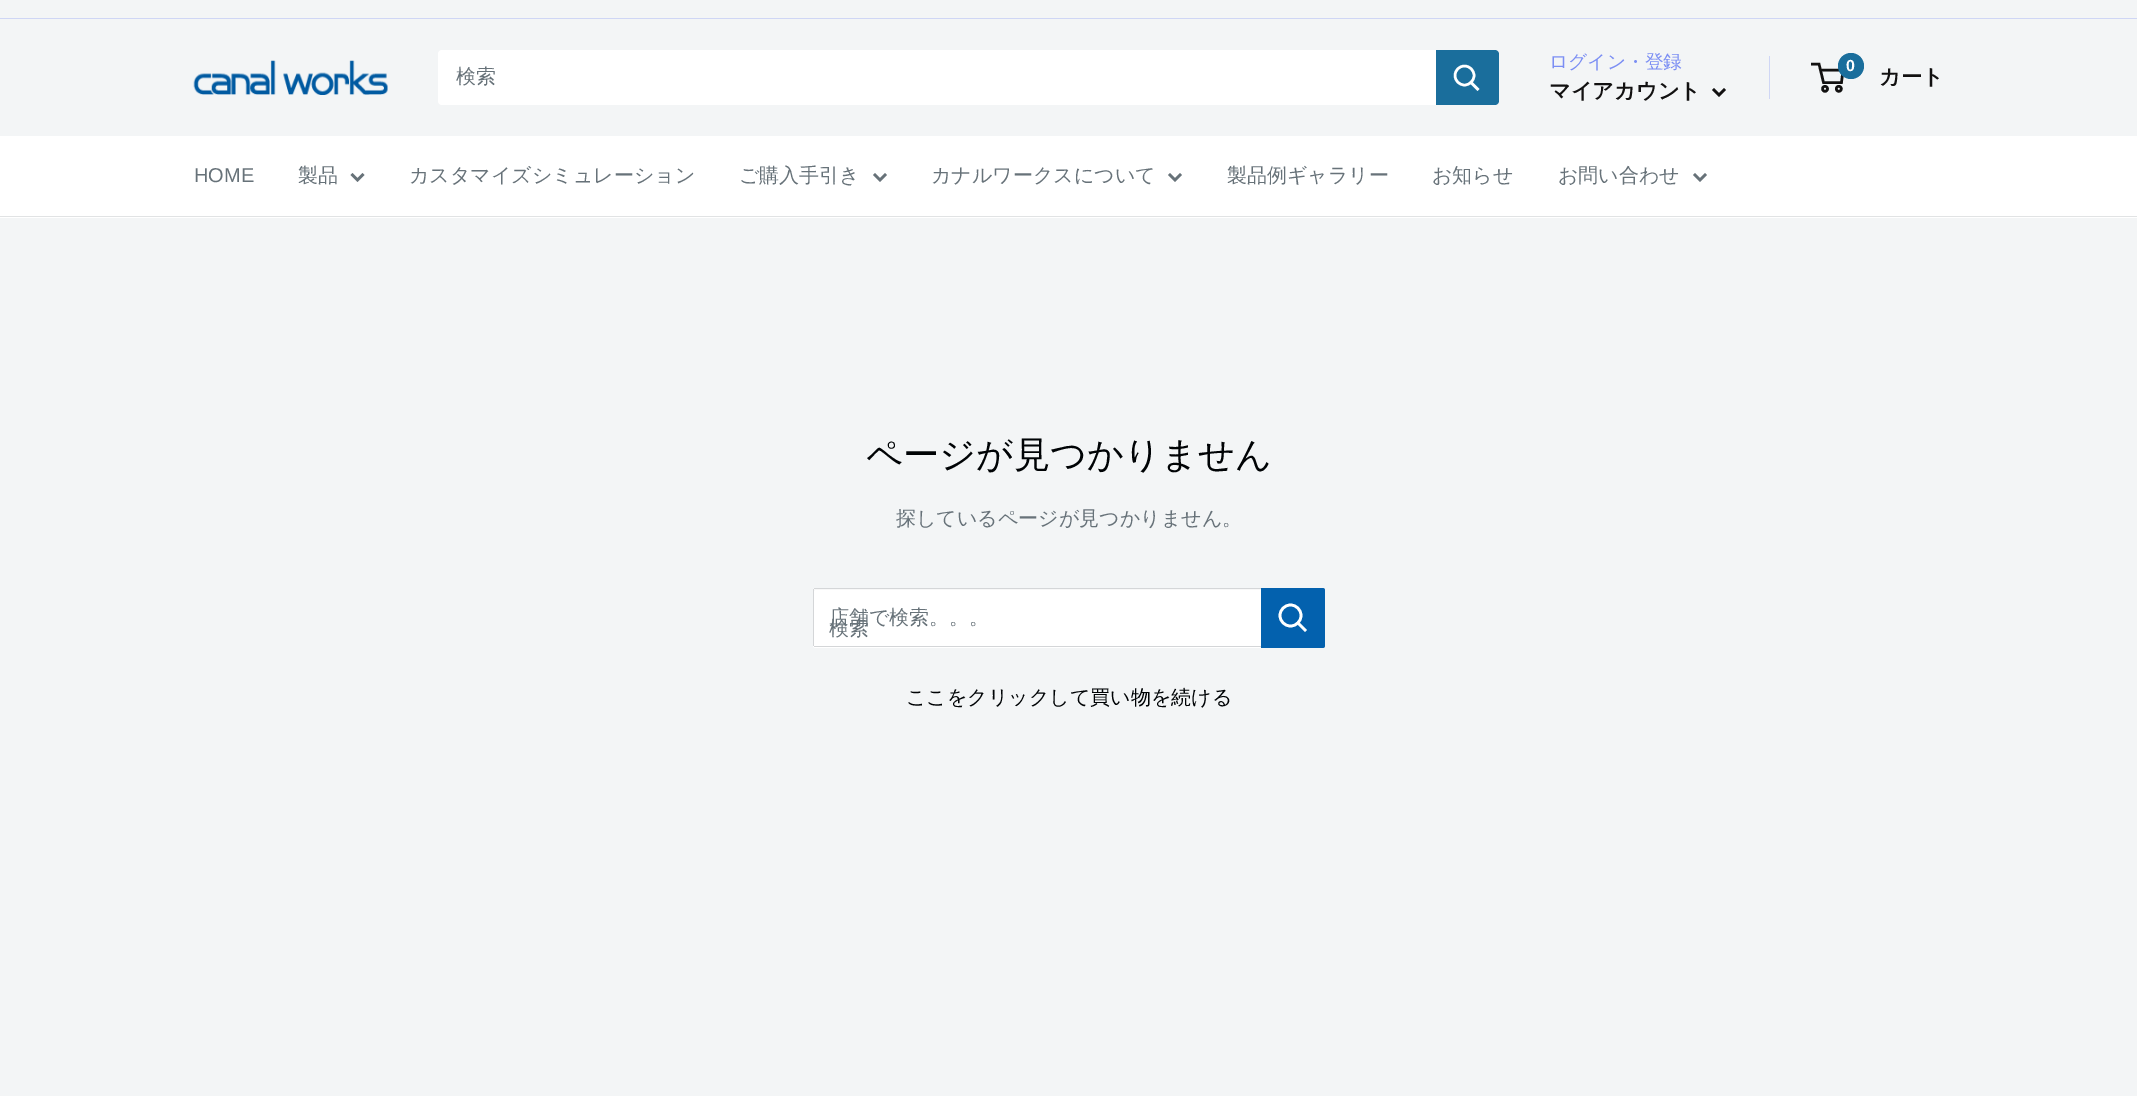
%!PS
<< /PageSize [2137 1096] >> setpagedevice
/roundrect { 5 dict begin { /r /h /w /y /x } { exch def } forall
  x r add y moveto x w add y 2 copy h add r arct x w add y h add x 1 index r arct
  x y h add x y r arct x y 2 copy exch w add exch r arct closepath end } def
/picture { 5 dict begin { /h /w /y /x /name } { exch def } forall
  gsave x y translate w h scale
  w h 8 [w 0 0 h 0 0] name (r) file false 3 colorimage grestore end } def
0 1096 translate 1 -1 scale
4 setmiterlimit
0.953 0.961 0.965 setrgbcolor
0 0 2137 1096 rectfill
0.812 0.839 0.961 setrgbcolor
0 18 2137 1 rectfill
(img1.rgb) 193 60 195 35 picture
1 setgray
438 50 1061 55 4 roundrect fill
/WenQuanYiZenHei-Medium [20 0 0 -20 0 0] selectfont
0.404 0.447 0.475 setrgbcolor
456 83 moveto (検索) show
0.102 0.431 0.612 setrgbcolor
newpath 1436 50 moveto 1495 50 lineto 1497 50 1499 52 1499 54 curveto 1499 101 lineto 1499 103 1497 105 1495 105 curveto 1436 105 lineto closepath fill
1 setgray
2.5 setlinewidth
2 setlinecap
newpath 1477.5 89 moveto 1471 82.5 lineto stroke
0 setlinecap
newpath 1464.5 75.5 9.5 0 360 arc closepath stroke
/WenQuanYiZenHei-Medium [18.75 0 0 -18.75 0 0] selectfont
0.482 0.557 0.957 setrgbcolor
1549 68 moveto (ログイン・登録) show
0.812 0.839 0.961 setrgbcolor
1769 56 1 43 rectfill
/WenQuanYiZenHei-Bold [21.25 0 0 -21.25 0 0] selectfont
0.071 0.067 0.067 setrgbcolor
1549 98 moveto (マイアカウント) show
2 setlinecap
newpath 1724 90 moveto 1719 95 lineto 1714 90 lineto stroke
0 setlinecap
newpath 1825 88.8 2.5 0 360 arc closepath stroke
newpath 1838.8 88.8 2.5 0 360 arc closepath stroke
newpath 1820.5 70 moveto 1843 70 lineto 1841.5 82.5 lineto 1823.5 82.5 lineto 1819 64 lineto 1811 64 lineto stroke
0.102 0.431 0.612 setrgbcolor
newpath 1851 66 13 0 360 arc closepath fill
/LiberationSans-Bold [16 0 0 -16 0 0] selectfont
1 setgray
1846 71 moveto (0) show
/WenQuanYiZenHei-Bold [21.25 0 0 -21.25 0 0] selectfont
0.071 0.067 0.067 setrgbcolor
1879 84 moveto (カート) show
1 setgray
0 136 2137 82 rectfill
0.882 0.89 0.894 setrgbcolor
0 216 2137 1 rectfill
/LiberationSans-Regular [20 0 0 -20 0 0] selectfont
0.404 0.447 0.475 setrgbcolor
194 182 moveto (HOME) show
/WenQuanYiZenHei-Medium [20 0 0 -20 0 0] selectfont
298 182 moveto (製品) show
2 setlinecap
newpath 362.5 175 moveto 357.5 180 lineto 352.5 175 lineto stroke
409 182 moveto (カスタマイズシミュレーション) show
739 182 moveto (ご購入手引き) show
newpath 885 175 moveto 880 180 lineto 875 175 lineto stroke
931 182 moveto (カナルワークスについて) show
newpath 1180 175 moveto 1175 180 lineto 1170 175 lineto stroke
1227 182 moveto (製品例ギャラリー) show
1432 182 moveto (お知らせ) show
1558 182 moveto (お問い合わせ) show
newpath 1705 175 moveto 1700 180 lineto 1695 175 lineto stroke
/WenQuanYiZenHei-Medium [36.25 0 0 -36.25 0 0] selectfont
0 0.012 0.02 setrgbcolor
866 467 moveto (ページが見つかりません) show
/WenQuanYiZenHei-Medium [20 0 0 -20 0 0] selectfont
0.404 0.447 0.475 setrgbcolor
896 525 moveto (探しているページが見つかりません。) show
1 setgray
newpath 815.5 588 moveto 1261 588 lineto 1261 648 lineto 815.5 648 lineto 814 648 813 647 813 645.5 curveto 813 590.5 lineto 813 589 814 588 815.5 588 curveto closepath fill
0.404 0.447 0.475 setrgbcolor
829 635 moveto (検索) show
829 624 moveto (店舗で検索。。。) show
0.973 setgray
newpath 815 590 moveto 1261 590 lineto 1261 589 lineto 815 589 lineto 814 590 lineto 814 591 lineto closepath fill
0.831 0.839 0.847 setrgbcolor
814 588 447 1 rectfill
814 646 447 1 rectfill
813 589 1 57 rectfill
0.012 0.38 0.682 setrgbcolor
newpath 1261 588 moveto 1322.5 588 lineto 1324 588 1325 589 1325 590.5 curveto 1325 645.5 lineto 1325 647 1324 648 1322.5 648 curveto 1261 648 lineto closepath fill
1 setgray
2.7 setlinewidth
newpath 1305 630 moveto 1298 623 lineto stroke
0 setlinecap
newpath 1290.5 615.5 10.5 0 360 arc closepath stroke
0 0.012 0.02 setrgbcolor
906 704 moveto (ここをクリックして買い物を続ける) show
showpage
